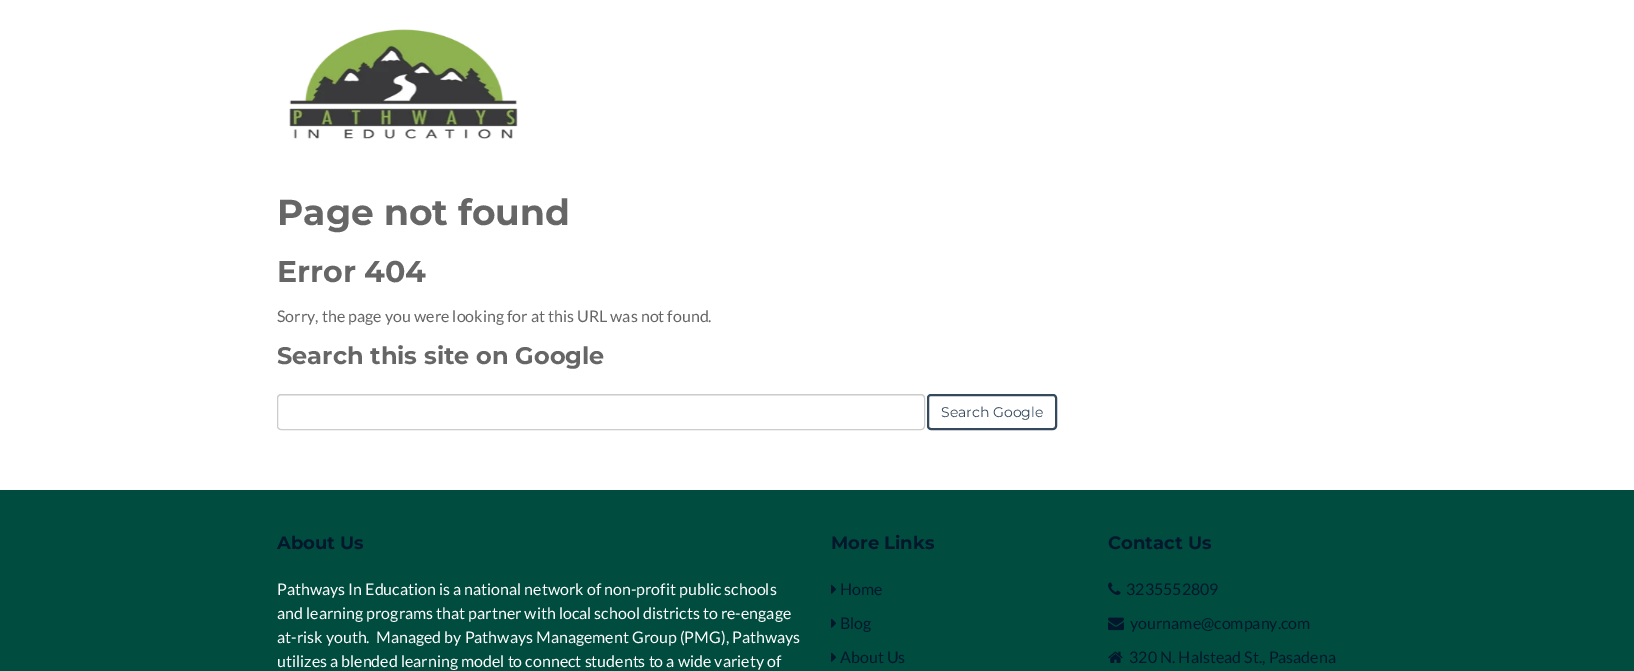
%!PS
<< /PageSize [1634 671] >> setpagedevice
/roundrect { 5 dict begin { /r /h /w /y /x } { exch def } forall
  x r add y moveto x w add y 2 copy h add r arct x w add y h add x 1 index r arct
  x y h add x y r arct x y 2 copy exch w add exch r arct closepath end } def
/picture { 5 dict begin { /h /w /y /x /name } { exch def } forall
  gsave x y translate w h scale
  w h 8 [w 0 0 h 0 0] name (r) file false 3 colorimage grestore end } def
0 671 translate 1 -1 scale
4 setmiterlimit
1 setgray
0 0 1634 671 rectfill
(img1.rgb) 289 29 229 110 picture
/Montserrat-Bold [36 0 0 -36 0 0] selectfont
0.4 setgray
277 225 moveto (Page not found) show
/Montserrat-Bold [30 0 0 -30 0 0] selectfont
277 282 moveto (Error 404) show
/Lato-Regular [16 0 0 -16 0 0] selectfont
277 322 moveto (Sorry, the page you were looking for at this URL was not found.) show
/Montserrat-Bold [24 0 0 -24 0 0] selectfont
277 364 moveto (Search this site on Google) show
0.925 setgray
newpath 281 396 moveto 921 396 lineto 923 396 924 397 924 399 curveto 924 398 lineto 924 396 923 395 921 395 curveto 281 395 lineto 279 395 278 396 278 398 curveto 278 399 lineto 278 397 279 396 281 396 curveto closepath fill
0.8 setgray
277.5 394.5 647 35 3.5 roundrect stroke
0.204 0.286 0.369 setrgbcolor
2 setlinewidth
928 395 128 34 3 roundrect stroke
/Montserrat-Regular [14 0 0 -14 0 0] selectfont
941 417 moveto (Search Google) show
0 0.302 0.251 setrgbcolor
0 490 1634 181 rectfill
/Montserrat-Bold [18 0 0 -18 0 0] selectfont
0.008 0.09 0.173 setrgbcolor
277 549 moveto (About Us) show
/Lato-Regular [16 0 0 -16 0 0] selectfont
1 setgray
277 595 moveto (Pathways In Education is a national network of non-profit public schools) show
277 619 moveto (and learning programs that partner with local school districts to re-engage) show
277 643 moveto (at-risk youth.  Managed by Pathways Management Group \(PMG\), Pathways) show
277 667 moveto (utilizes a blended learning model to connect students to a wide variety of) show
/Montserrat-Bold [18 0 0 -18 0 0] selectfont
0.008 0.09 0.173 setrgbcolor
831 549 moveto (More Links) show
(img2.rgb) 831 584 5 10 picture
/Lato-Regular [16 0 0 -16 0 0] selectfont
840 595 moveto (Home) show
(img2.rgb) 831 618 5 10 picture
840 629 moveto (Blog) show
(img2.rgb) 831 652 5 10 picture
840 663 moveto (About Us) show
/Montserrat-Bold [18 0 0 -18 0 0] selectfont
1108 549 moveto (Contact Us) show
(img3.rgb) 1108 582 13 13 picture
/Lato-Regular [16 0 0 -16 0 0] selectfont
1126 595 moveto (3235552809) show
(img4.rgb) 1108 617 16 14 picture
1130 629 moveto (yourname@company.com) show
(img5.rgb) 1108 651 15 12 picture
1129 663 moveto (320 N. Halstead St., Pasadena) show
showpage
